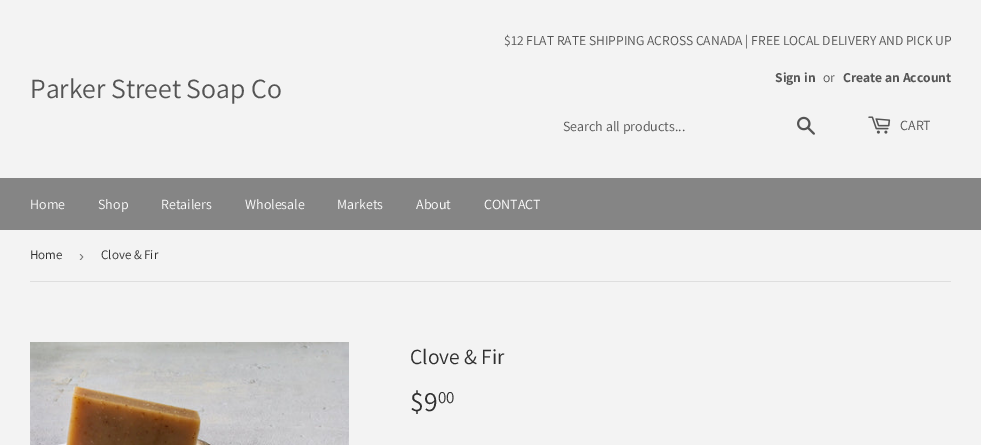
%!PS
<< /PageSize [981 445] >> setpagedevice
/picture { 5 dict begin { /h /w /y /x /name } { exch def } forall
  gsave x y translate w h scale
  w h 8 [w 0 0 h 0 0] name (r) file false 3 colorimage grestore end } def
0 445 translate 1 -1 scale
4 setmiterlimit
0.953 setgray
0 0 981 445 rectfill
/Assistant-Regular [27.75 0 0 -27.75 0 0] selectfont
0.329 setgray
30 98 moveto (Parker Street Soap Co) show
/Assistant-Regular [13.6 0 0 -13.6 0 0] selectfont
504 45 moveto ($12 FLAT RATE SHIPPING ACROSS CANADA | FREE LOCAL DELIVERY AND PICK UP) show
/Assistant-Bold [13.6 0 0 -13.6 0 0] selectfont
775 82 moveto (Sign in) show
/Assistant-Regular [13.6 0 0 -13.6 0 0] selectfont
823 82 moveto (or) show
/Assistant-Bold [13.6 0 0 -13.6 0 0] selectfont
843 82 moveto (Create an Account) show
/Assistant-Regular [14 0 0 -14 0 0] selectfont
563 131 moveto (Search all products...) show
(img1.rgb) 797 116 18 19 picture
(img2.rgb) 868 116 23 18 picture
900 130 moveto (CART) show
0.522 setgray
0 178 981 52 rectfill
1 setgray
30 209 moveto (Home) show
98 209 moveto (Shop) show
161 209 moveto (Retailers) show
245 209 moveto (Wholesale) show
337 209 moveto (Markets) show
416 209 moveto (About) show
484 209 moveto (CONTACT) show
0.871 setgray
30 281 921 1 rectfill
/Assistant-Regular [13 0 0 -13 0 0] selectfont
0.184 setgray
30 259 moveto (Home) show
/LiberationSans-Regular [15 0 0 -15 0 0] selectfont
0.463 setgray
79 261 moveto (›) show
/Assistant-Regular [13 0 0 -13 0 0] selectfont
0.184 setgray
101 259 moveto (Clove & Fir) show
(img3.rgb) 30 342 319 103 picture
/Assistant-Regular [21.5 0 0 -21.5 0 0] selectfont
410 364 moveto (Clove & Fir) show
/Assistant-Regular [27.75 0 0 -27.75 0 0] selectfont
410 411 moveto ($9) show
/Assistant-Regular [17 0 0 -17 0 0] selectfont
438 403 moveto (00) show
showpage
